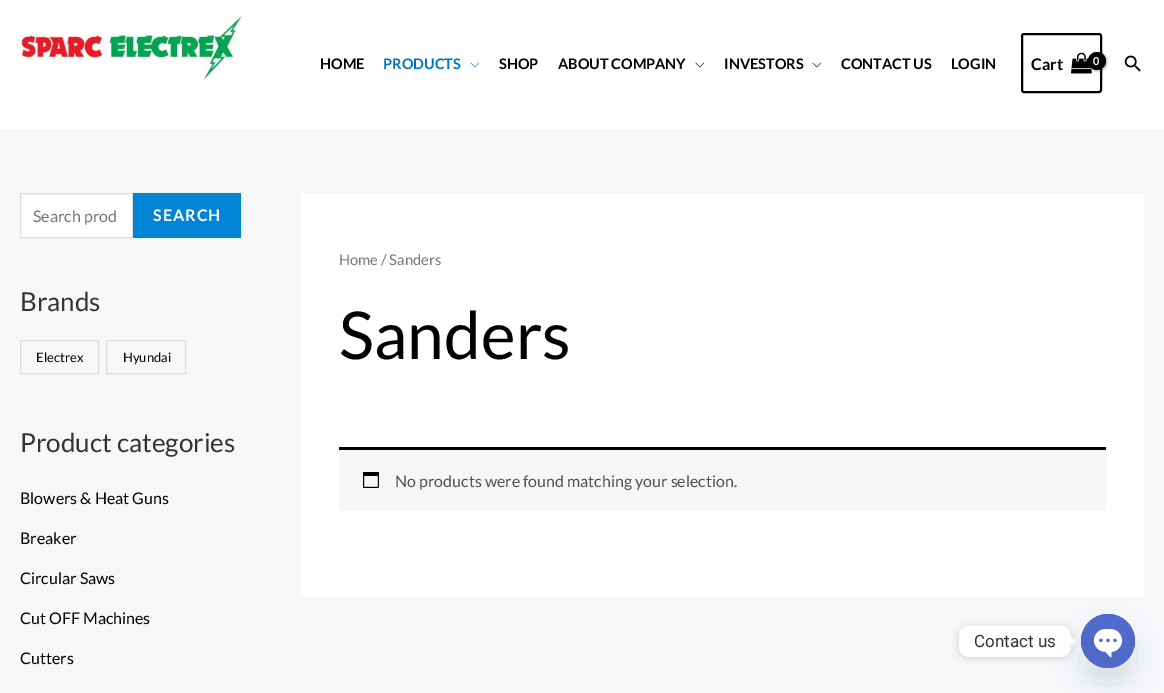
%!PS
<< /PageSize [1164 693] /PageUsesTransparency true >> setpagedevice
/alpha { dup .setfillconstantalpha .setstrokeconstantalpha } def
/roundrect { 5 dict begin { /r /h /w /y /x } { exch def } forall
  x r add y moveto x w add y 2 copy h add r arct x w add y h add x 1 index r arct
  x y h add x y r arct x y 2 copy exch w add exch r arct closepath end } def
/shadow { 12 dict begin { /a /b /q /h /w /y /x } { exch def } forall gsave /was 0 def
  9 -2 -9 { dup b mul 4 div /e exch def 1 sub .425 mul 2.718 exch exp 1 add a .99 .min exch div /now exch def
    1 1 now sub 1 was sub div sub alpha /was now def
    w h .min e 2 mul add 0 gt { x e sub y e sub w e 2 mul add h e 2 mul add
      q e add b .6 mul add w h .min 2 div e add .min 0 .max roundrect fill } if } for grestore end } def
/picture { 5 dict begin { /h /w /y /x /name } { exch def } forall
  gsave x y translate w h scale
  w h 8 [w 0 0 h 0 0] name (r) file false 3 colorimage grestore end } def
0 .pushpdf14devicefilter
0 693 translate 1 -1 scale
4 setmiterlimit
0.961 0.969 0.976 setrgbcolor
0 0 1164 693 rectfill
1 setgray
0 0 1164 129 rectfill
(img1.rgb) 20 16 224 64 picture
/Lato-Bold [14.5 0 0 -14.5 0 0] selectfont
0 setgray
320 69 moveto (HOME) show
0 0.459 0.745 setrgbcolor
383 69 moveto (PRODUCTS) show
(img2.rgb) 470 62 9 6 picture
0 setgray
499 69 moveto (SHOP) show
558 69 moveto (ABOUT COMPANY) show
(img3.rgb) 695 62 9 6 picture
724 69 moveto (INVESTORS) show
(img3.rgb) 812 62 9 6 picture
841 69 moveto (CONTACT US) show
951 69 moveto (LOGIN) show
2 setlinewidth
1022 34 79 58 2 roundrect stroke
/Lato-Bold [16 0 0 -16 0 0] selectfont
1031 70 moveto (Cart) show
(img4.rgb) 1071 52 21 22 picture
1089 53 18 18 9 1.5 0.3 shadow
newpath 1097 61 9 0 360 arc closepath fill
/Lato-Bold [11 0 0 -11 0 0] selectfont
1 setgray
1093 65 moveto (0) show
(img5.rgb) 1124 55 17 17 picture
newpath 20.5 193.5 moveto 132.5 193.5 lineto 132.5 237.5 lineto 20.5 237.5 lineto closepath gsave fill grestore
0.867 setgray
1 setlinewidth
stroke
/Lato-Regular [16 0 0 -16 0 0] selectfont
0.459 setgray
33 222 moveto (Search prod) show
0 0.518 0.839 setrgbcolor
133 193 108 45 rectfill
/Lato-Bold [16 0 0 -16 0 0] selectfont
1 setgray
153 221 moveto 1 0 (SEARCH) ashow
/Lato-Regular [26 0 0 -26 0 0] selectfont
0.2 setgray
20 311 moveto (Brands) show
0.867 setgray
20.5 340.5 78 33 rectstroke
/Lato-Regular [13 0 0 -13 0 0] selectfont
0 setgray
36 362 moveto (Electrex) show
0.867 setgray
106.5 340.5 79 33 rectstroke
0 setgray
123 362 moveto (Hyundai) show
/Lato-Regular [26 0 0 -26 0 0] selectfont
0.2 setgray
20 452 moveto (Product categories) show
/Lato-Regular [16 0 0 -16 0 0] selectfont
0 setgray
20 504 moveto (Blowers & Heat Guns) show
20 544 moveto (Breaker) show
20 584 moveto (Circular Saws) show
20 624 moveto (Cut OFF Machines) show
20 664 moveto (Cutters) show
1 setgray
301 193 843 404 rectfill
/Lato-Regular [14.75 0 0 -14.75 0 0] selectfont
0.459 setgray
339 265 moveto (Home / Sanders) show
/Lato-Regular [66 0 0 -66 0 0] selectfont
0 setgray
339 359 moveto (Sanders) show
0.969 0.965 0.969 setrgbcolor
339 450 767 61 rectfill
0 setgray
339 447 767 3 rectfill
(img6.rgb) 363 472 16 16 picture
/Lato-Regular [16 0 0 -16 0 0] selectfont
0.318 setgray
395 487 moveto (No products were found matching your selection.) show
0 setgray
959 627 112 31 10 4 0.15 shadow
1 setgray
959 626 112 31 10 roundrect fill
/Roboto-Regular [17 0 0 -17 0 0] selectfont
0.2 setgray
974 647 moveto (Contact us) show
1 setgray
newpath 1071 646.5 moveto 1071 636.5 lineto 1076 641.5 lineto closepath fill
0.286 0.408 0.494 setrgbcolor
1081 630 54 54 27 12 0.16 shadow
(img7.rgb) 1081 614 54 54 picture
.poppdf14devicefilter showpage
